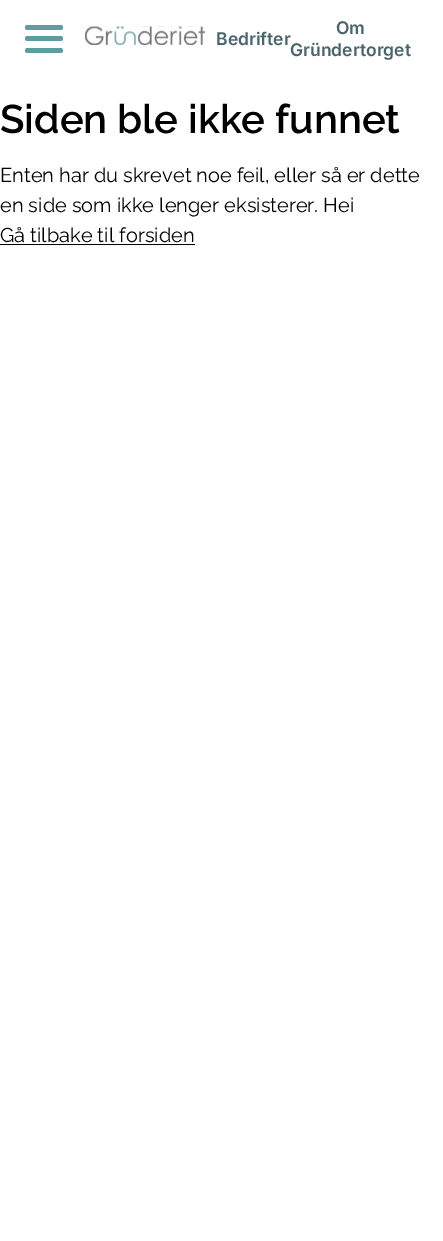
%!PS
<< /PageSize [443 1241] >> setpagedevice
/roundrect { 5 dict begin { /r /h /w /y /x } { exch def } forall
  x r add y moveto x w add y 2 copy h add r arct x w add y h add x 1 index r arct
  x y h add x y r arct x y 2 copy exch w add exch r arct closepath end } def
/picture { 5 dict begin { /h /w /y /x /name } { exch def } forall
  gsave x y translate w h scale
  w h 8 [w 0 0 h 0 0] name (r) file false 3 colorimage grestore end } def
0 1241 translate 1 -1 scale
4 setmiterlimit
1 setgray
0 0 443 1241 rectfill
0.373 0.612 0.627 setrgbcolor
25 25 38 5 2.5 roundrect fill
25 36 38 5 2.5 roundrect fill
25 48 38 5 2.5 roundrect fill
(img1.rgb) 85 26 120 19 picture
/Inter-SemiBold [17.5 0 0 -17.5 0 0] selectfont
0.278 0.396 0.416 setrgbcolor
216 45 moveto (Bedrifter) show
336 34 moveto (Om) show
290 56 moveto (Gründertorget) show
/Raleway-SemiBold [40 0 0 -40 0 0] selectfont
0 setgray
0 133 moveto (Siden ble ikke funnet) show
/Raleway-Regular [20 0 0 -20 0 0] selectfont
0 182 moveto (Enten har du skrevet noe feil, eller så er dette) show
0 212 moveto (en side som ikke lenger eksisterer. Hei) show
0 242 moveto (Gå tilbake til forsiden) show
0 244 195 1 rectfill
showpage
